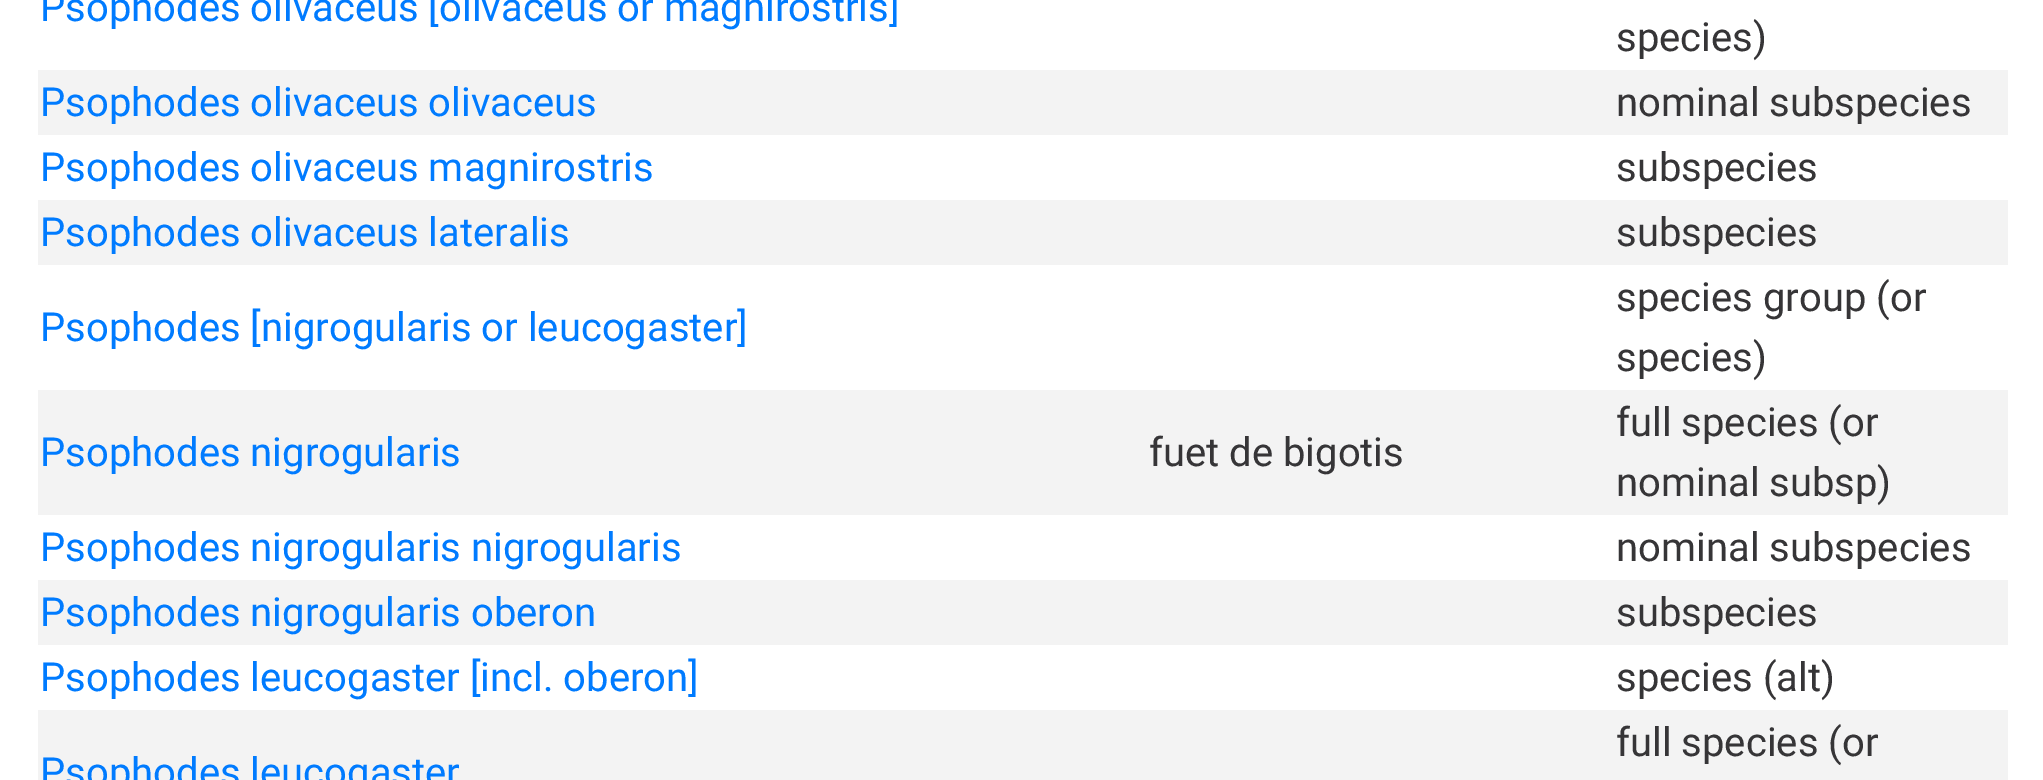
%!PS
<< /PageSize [2043 780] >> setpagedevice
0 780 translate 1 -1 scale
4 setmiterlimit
1 setgray
0 0 2043 780 rectfill
/Roboto-Regular [40 0 0 -40 0 0] selectfont
0 0.482 1 setrgbcolor
40 21 moveto (Psophodes olivaceus [olivaceus or magnirostris]) show
0.212 0.208 0.216 setrgbcolor
1616 51 moveto (species\)) show
0.953 setgray
38 70 1970 65 rectfill
0 0.482 1 setrgbcolor
40 116 moveto (Psophodes olivaceus olivaceus) show
0.212 0.208 0.216 setrgbcolor
1616 116 moveto (nominal subspecies) show
0 0.482 1 setrgbcolor
40 181 moveto (Psophodes olivaceus magnirostris) show
0.212 0.208 0.216 setrgbcolor
1616 181 moveto (subspecies) show
0.953 setgray
38 200 1970 65 rectfill
0 0.482 1 setrgbcolor
40 246 moveto (Psophodes olivaceus lateralis) show
0.212 0.208 0.216 setrgbcolor
1616 246 moveto (subspecies) show
0 0.482 1 setrgbcolor
40 341 moveto (Psophodes [nigrogularis or leucogaster]) show
0.212 0.208 0.216 setrgbcolor
1616 311 moveto (species group \(or) show
1616 371 moveto (species\)) show
0.953 setgray
38 390 1970 125 rectfill
0 0.482 1 setrgbcolor
40 466 moveto (Psophodes nigrogularis) show
0.212 0.208 0.216 setrgbcolor
1149 466 moveto (fuet de bigotis) show
1616 436 moveto (full species \(or) show
1616 496 moveto (nominal subsp\)) show
0 0.482 1 setrgbcolor
40 561 moveto (Psophodes nigrogularis nigrogularis) show
0.212 0.208 0.216 setrgbcolor
1616 561 moveto (nominal subspecies) show
0.953 setgray
38 580 1970 65 rectfill
0 0.482 1 setrgbcolor
40 626 moveto (Psophodes nigrogularis oberon) show
0.212 0.208 0.216 setrgbcolor
1616 626 moveto (subspecies) show
0 0.482 1 setrgbcolor
40 691 moveto (Psophodes leucogaster [incl. oberon]) show
0.212 0.208 0.216 setrgbcolor
1616 691 moveto (species \(alt\)) show
0.953 setgray
38 710 1970 70 rectfill
0 0.482 1 setrgbcolor
40 786 moveto (Psophodes leucogaster) show
0.212 0.208 0.216 setrgbcolor
1616 756 moveto (full species \(or) show
showpage
